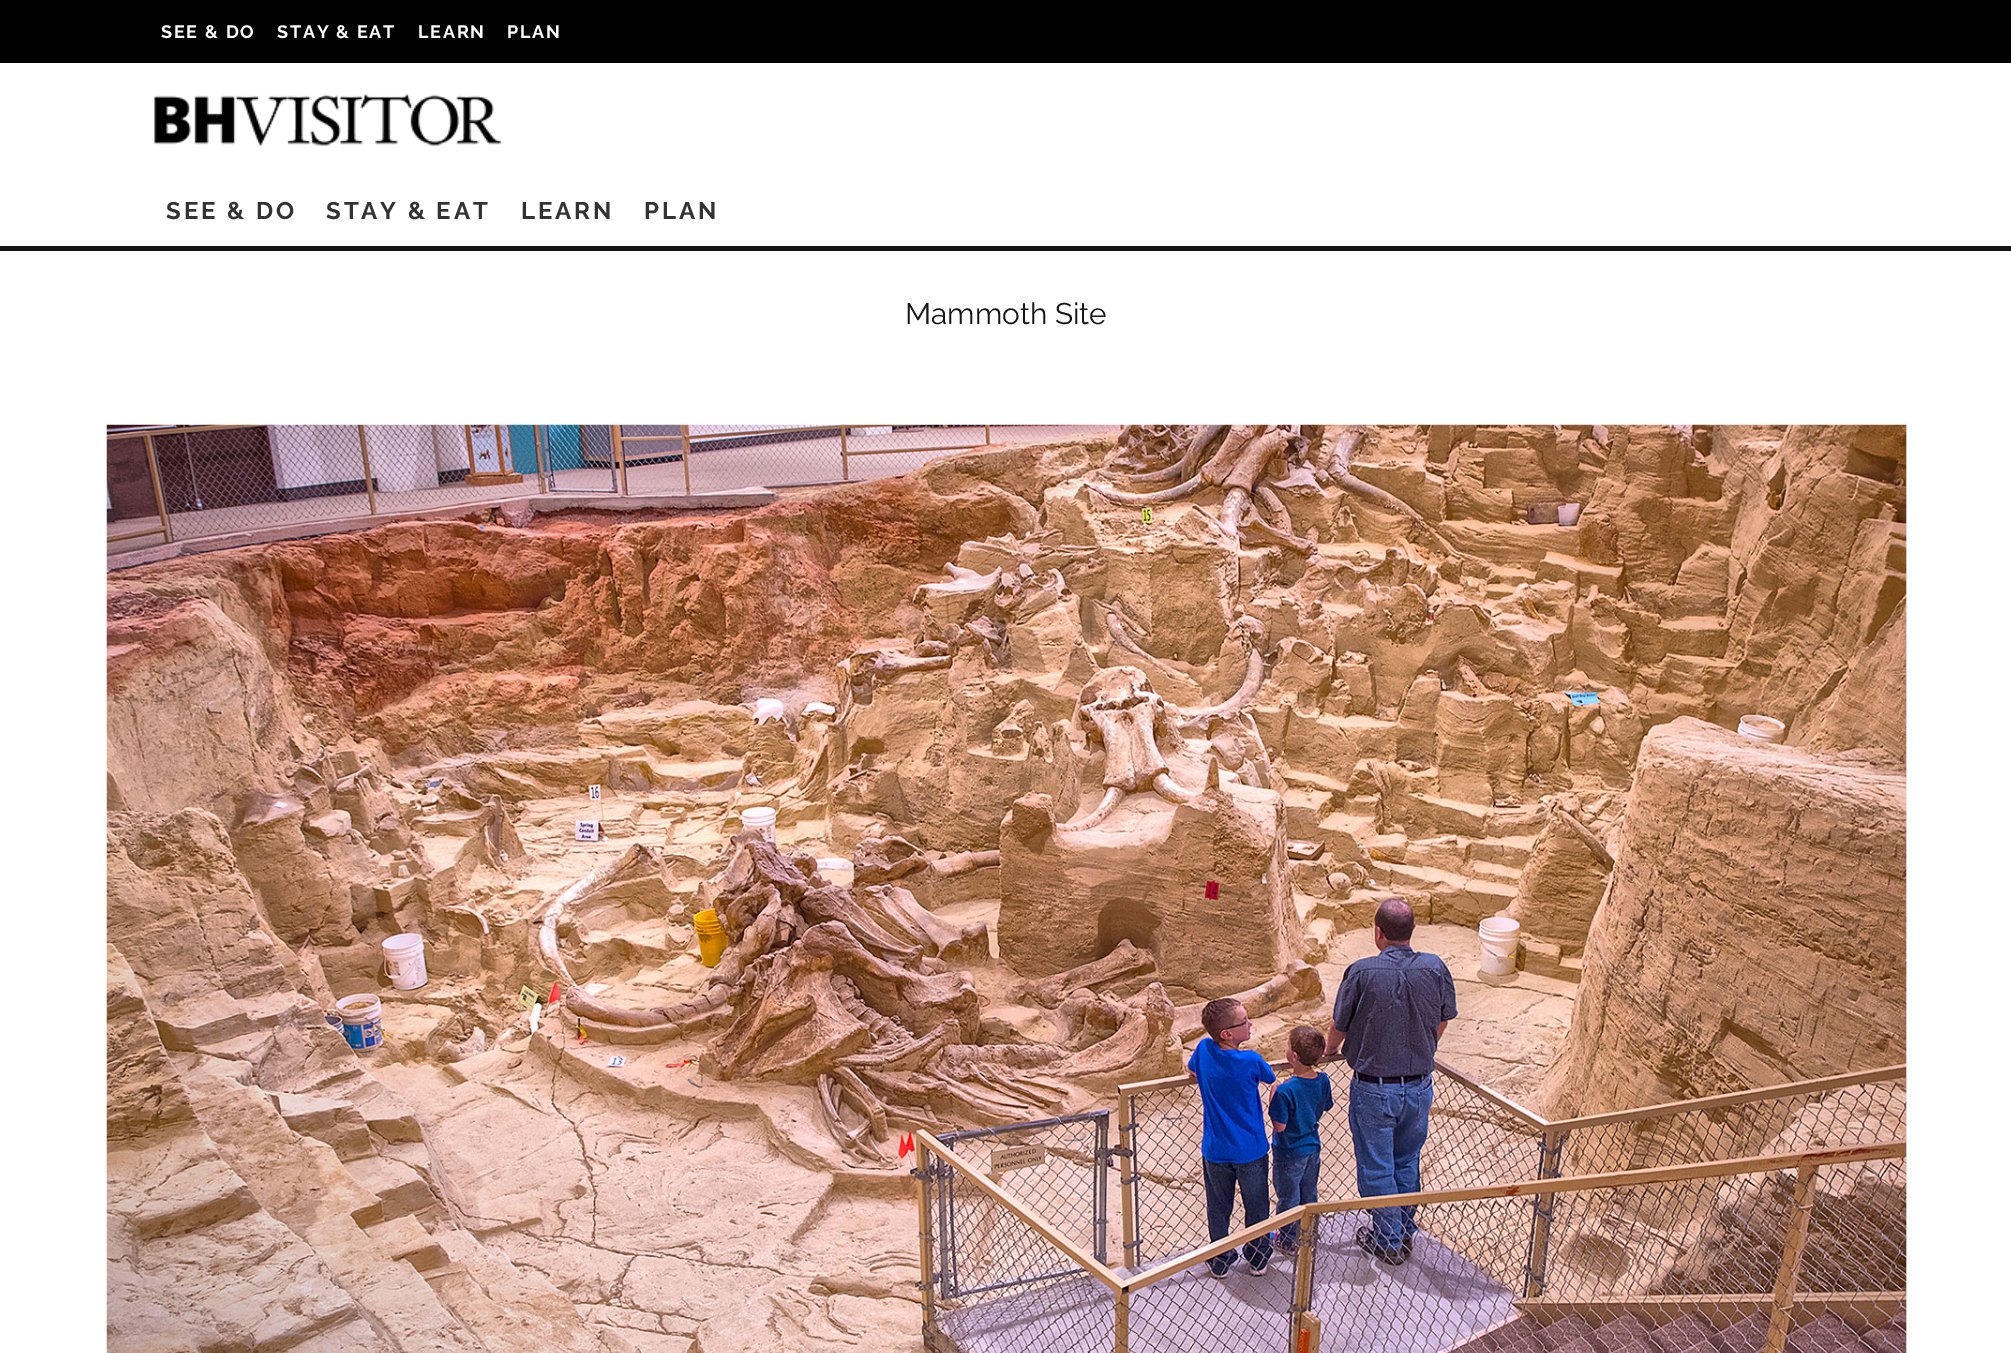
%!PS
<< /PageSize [2011 1353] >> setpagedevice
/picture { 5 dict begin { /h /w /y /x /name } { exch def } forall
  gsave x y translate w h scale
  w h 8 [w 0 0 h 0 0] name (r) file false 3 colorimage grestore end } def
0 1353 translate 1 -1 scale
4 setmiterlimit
1 setgray
0 0 2011 1353 rectfill
0.004 setgray
0 0 2011 63 rectfill
/Raleway-Bold [18 0 0 -18 0 0] selectfont
1 setgray
161 38 moveto 1.75 0 (SEE & DO) ashow
277 38 moveto 1.75 0 (STAY & EAT) ashow
418 38 moveto 1.75 0 (LEARN) ashow
507 38 moveto 1.75 0 (PLAN) ashow
(img1.rgb) 154 94 348 52 picture
0.086 setgray
0 246 2011 5 rectfill
/Raleway-Bold [24 0 0 -24 0 0] selectfont
0.2 setgray
166 219 moveto 2.9 0 (SEE & DO) ashow
326 219 moveto 2.9 0 (STAY & EAT) ashow
521 219 moveto 2.9 0 (LEARN) ashow
644 219 moveto 2.9 0 (PLAN) ashow
/Raleway-Regular [29.75 0 0 -29.75 0 0] selectfont
0.086 setgray
905 324 moveto (Mammoth Site) show
0.933 setgray
1906 425 1 928 rectfill
(img2.rgb) 106 424 1801 929 picture
showpage
